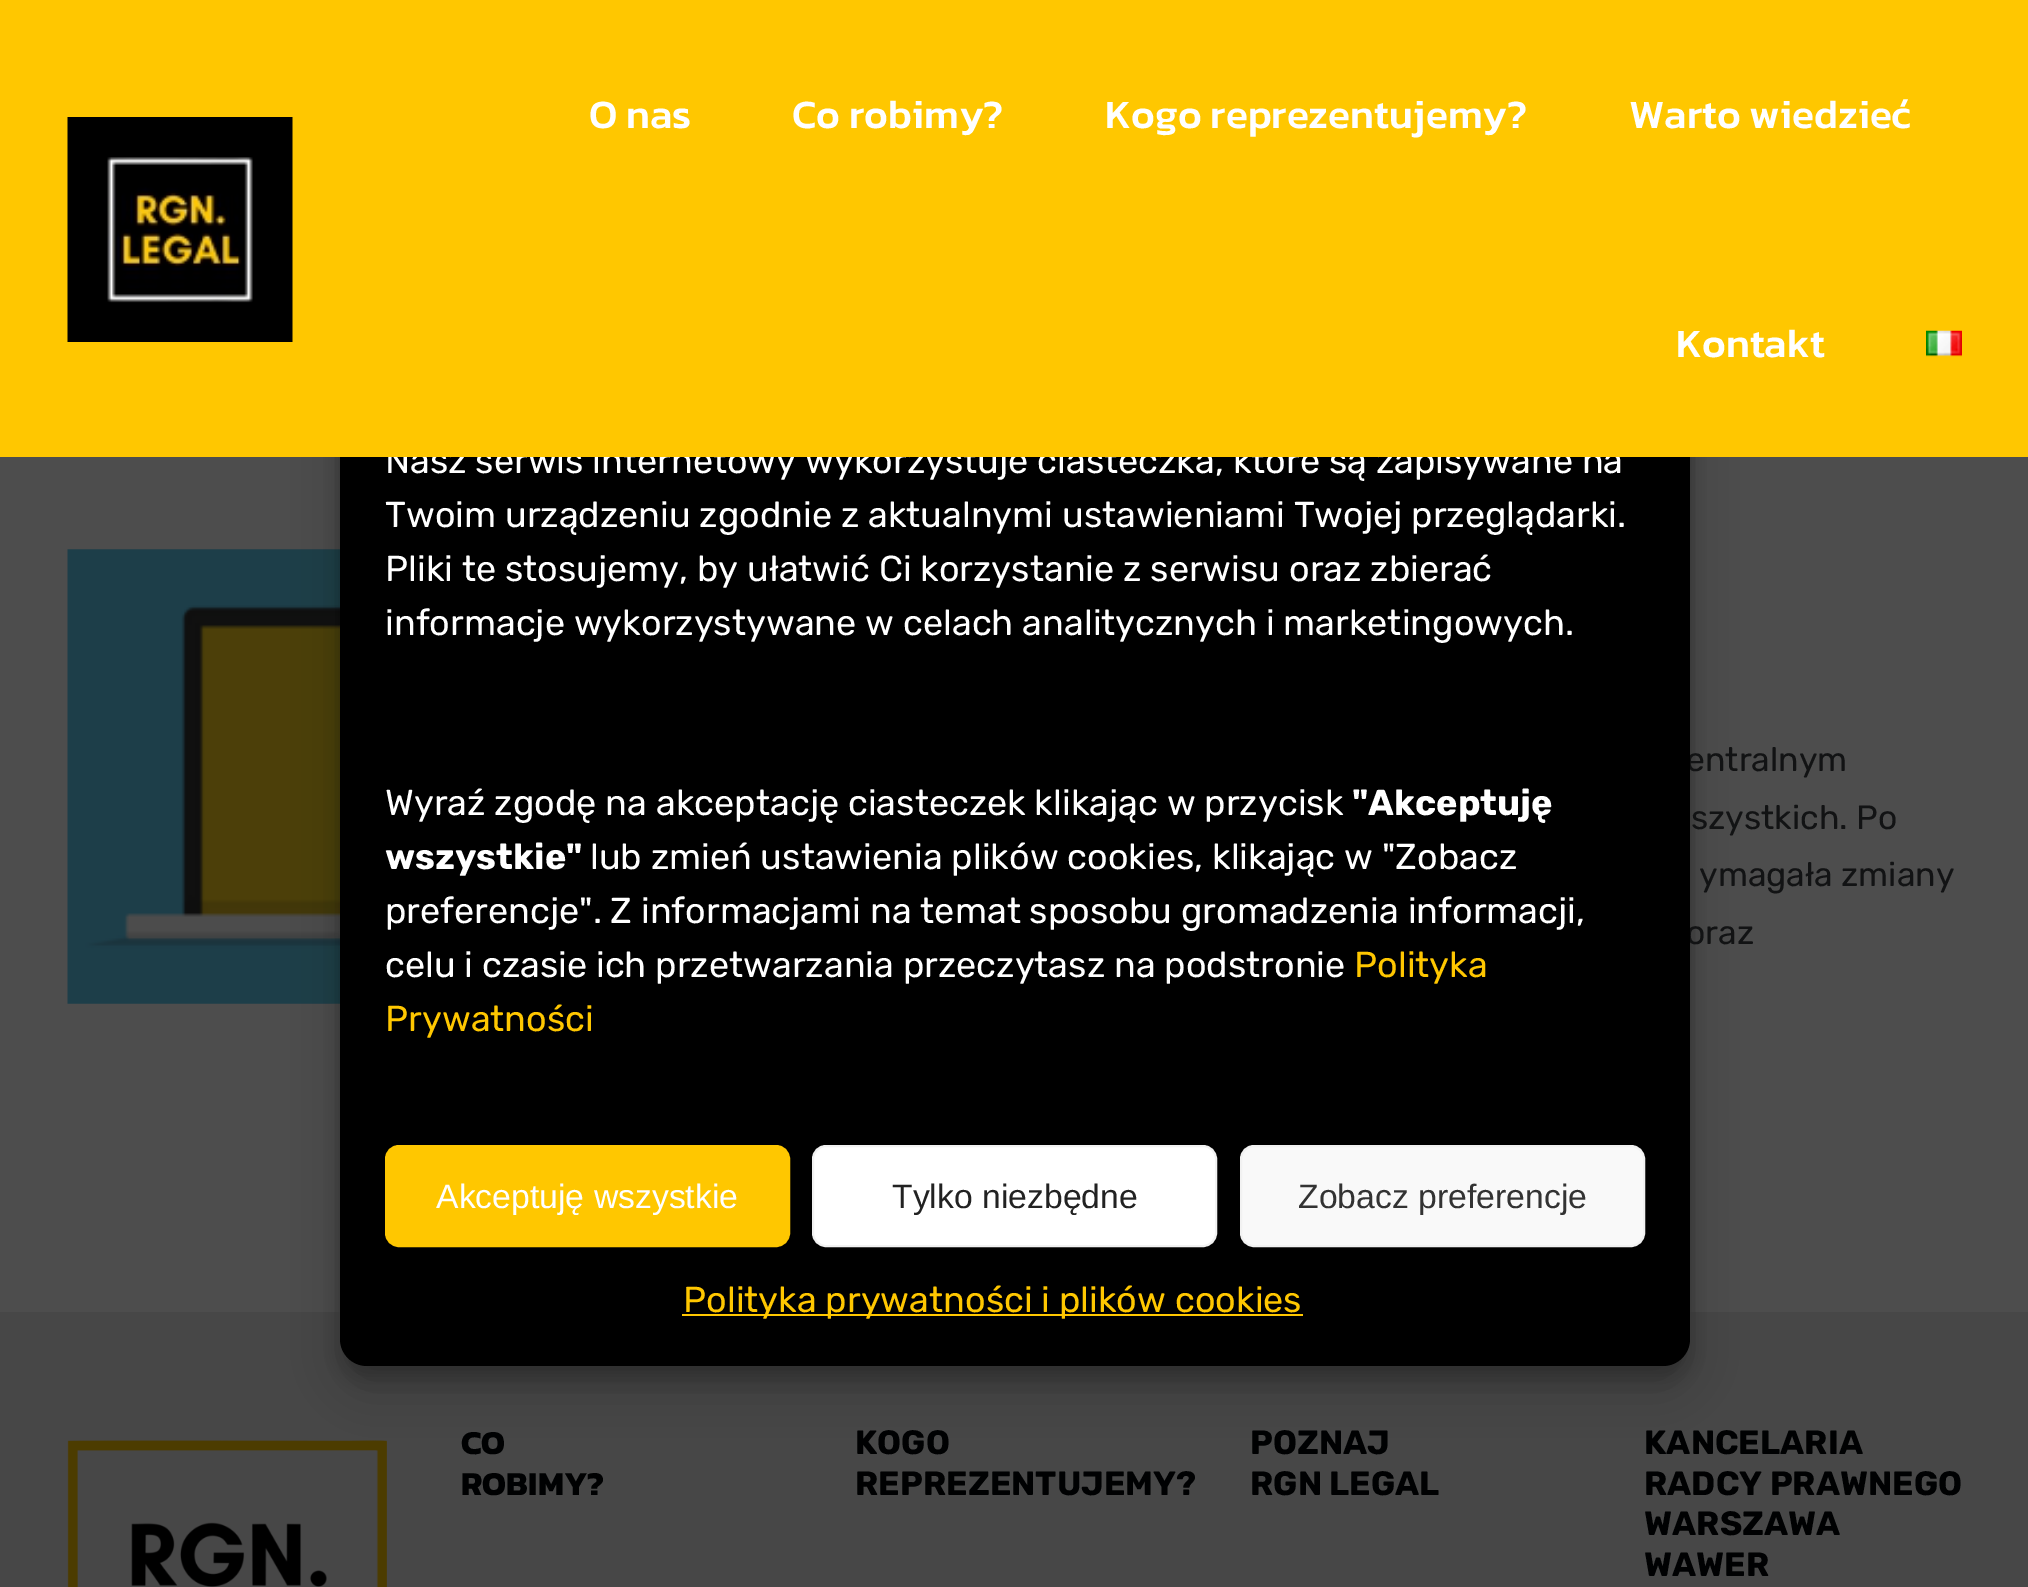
%!PS
<< /PageSize [2028 1587] /PageUsesTransparency true >> setpagedevice
/alpha { dup .setfillconstantalpha .setstrokeconstantalpha } def
/roundrect { 5 dict begin { /r /h /w /y /x } { exch def } forall
  x r add y moveto x w add y 2 copy h add r arct x w add y h add x 1 index r arct
  x y h add x y r arct x y 2 copy exch w add exch r arct closepath end } def
/shadow { 12 dict begin { /a /b /q /h /w /y /x } { exch def } forall gsave /was 0 def
  9 -2 -9 { dup b mul 4 div /e exch def 1 sub .425 mul 2.718 exch exp 1 add a .99 .min exch div /now exch def
    1 1 now sub 1 was sub div sub alpha /was now def
    w h .min e 2 mul add 0 gt { x e sub y e sub w e 2 mul add h e 2 mul add
      q e add b .6 mul add w h .min 2 div e add .min 0 .max roundrect fill } if } for grestore end } def
/picture { 5 dict begin { /h /w /y /x /name } { exch def } forall
  gsave x y translate w h scale
  w h 8 [w 0 0 h 0 0] name (r) file false 3 colorimage grestore end } def
0 .pushpdf14devicefilter
0 1587 translate 1 -1 scale
4 setmiterlimit
0.302 setgray
0 0 2028 1587 rectfill
(img3.rgb) 67 549 273 455 picture
0.278 setgray
0 1312 2028 275 rectfill
0 setgray
340 236 1350 1143 27 7 0.23 shadow
(img4.rgb) 67 1440 320 147 picture
340 245 1350 1143 27 22.5 0.19 shadow
/Rubik-Regular [33.75 0 0 -33.75 0 0] selectfont
0.071 0.075 0.078 setrgbcolor
1686 771 moveto (entralnym) show
1686 944 moveto (oraz) show
0 setgray
340 223 1350 1143 27 roundrect fill
/Rubik-Regular [36 0 0 -36 0 0] selectfont
1 setgray
385 473 moveto (Nasz serwis internetowy wykorzystuje ciasteczka, które są zapisywane na) show
1 0.78 0 setrgbcolor
0 0 2028 457 rectfill
(img1.rgb) 67 117 226 225 picture
/Kanit-Medium [40.5 0 0 -40.5 0 0] selectfont
1 setgray
589 128 moveto (O nas) show
792 128 moveto (Co robimy?) show
1105 128 moveto (Kogo reprezentujemy?) show
1629 128 moveto (Warto wiedzieć) show
1676 357 moveto (Kontakt) show
(img2.rgb) 1926 330 36 27 picture
/Rubik-Regular [33.75 0 0 -33.75 0 0] selectfont
0.071 0.075 0.078 setrgbcolor
1691 829 moveto (szystkich. Po) show
1699 886 moveto (ymagała zmiany) show
/Kanit-Bold [33.75 0 0 -33.75 0 0] selectfont
0 0.004 0.008 setrgbcolor
461 1454 moveto (CO) show
461 1495 moveto (ROBIMY?) show
/Rubik-Bold [33.75 0 0 -33.75 0 0] selectfont
855 1454 moveto (KOGO) show
855 1495 moveto (REPREZENTUJEMY?) show
1250 1454 moveto (POZNAJ) show
1250 1495 moveto (RGN LEGAL) show
1644 1454 moveto (KANCELARIA) show
1644 1495 moveto (RADCY PRAWNEGO) show
1644 1535 moveto (WARSZAWA) show
1644 1576 moveto (WAWER) show
/Rubik-Regular [36 0 0 -36 0 0] selectfont
1 setgray
385 527 moveto (Twoim urządzeniu zgodnie z aktualnymi ustawieniami Twojej przeglądarki.) show
385 581 moveto (Pliki te stosujemy, by ułatwić Ci korzystanie z serwisu oraz zbierać) show
385 635 moveto (informacje wykorzystywane w celach analitycznych i marketingowych.) show
385 815 moveto (Wyraź zgodę na akceptację ciasteczek klikając w przycisk) show
/Rubik-Bold [36 0 0 -36 0 0] selectfont
1352 815 moveto ("Akceptuję) show
385 869 moveto (wszystkie") show
/Rubik-Regular [36 0 0 -36 0 0] selectfont
590 869 moveto (lub zmień ustawienia plików cookies, klikając w "Zobacz) show
385 923 moveto (preferencje". Z informacjami na temat sposobu gromadzenia informacji,) show
385 977 moveto (celu i czasie ich przetwarzania przeczytasz na podstronie) show
1 0.78 0 setrgbcolor
1354 977 moveto (Polityka) show
385 1031 moveto (Prywatności) show
386 1146 403 100 13 roundrect gsave fill grestore
2 setlinewidth
stroke
/LiberationSans-Regular [33.75 0 0 -33.75 0 0] selectfont
1 setgray
436 1208 moveto (Akceptuję wszystkie) show
813 1146 403 100 13 roundrect gsave fill grestore
0.949 setgray
stroke
0.133 setgray
892 1208 moveto (Tylko niezbędne) show
0.976 setgray
1241 1146 403 100 13 roundrect gsave fill grestore
0.949 setgray
stroke
0.2 setgray
1298 1208 moveto (Zobacz preferencje) show
1 0.78 0 setrgbcolor
682 1314 621 2 rectfill
/Rubik-Regular [36 0 0 -36 0 0] selectfont
683 1312 moveto (Polityka prywatności i plików cookies) show
.poppdf14devicefilter showpage
